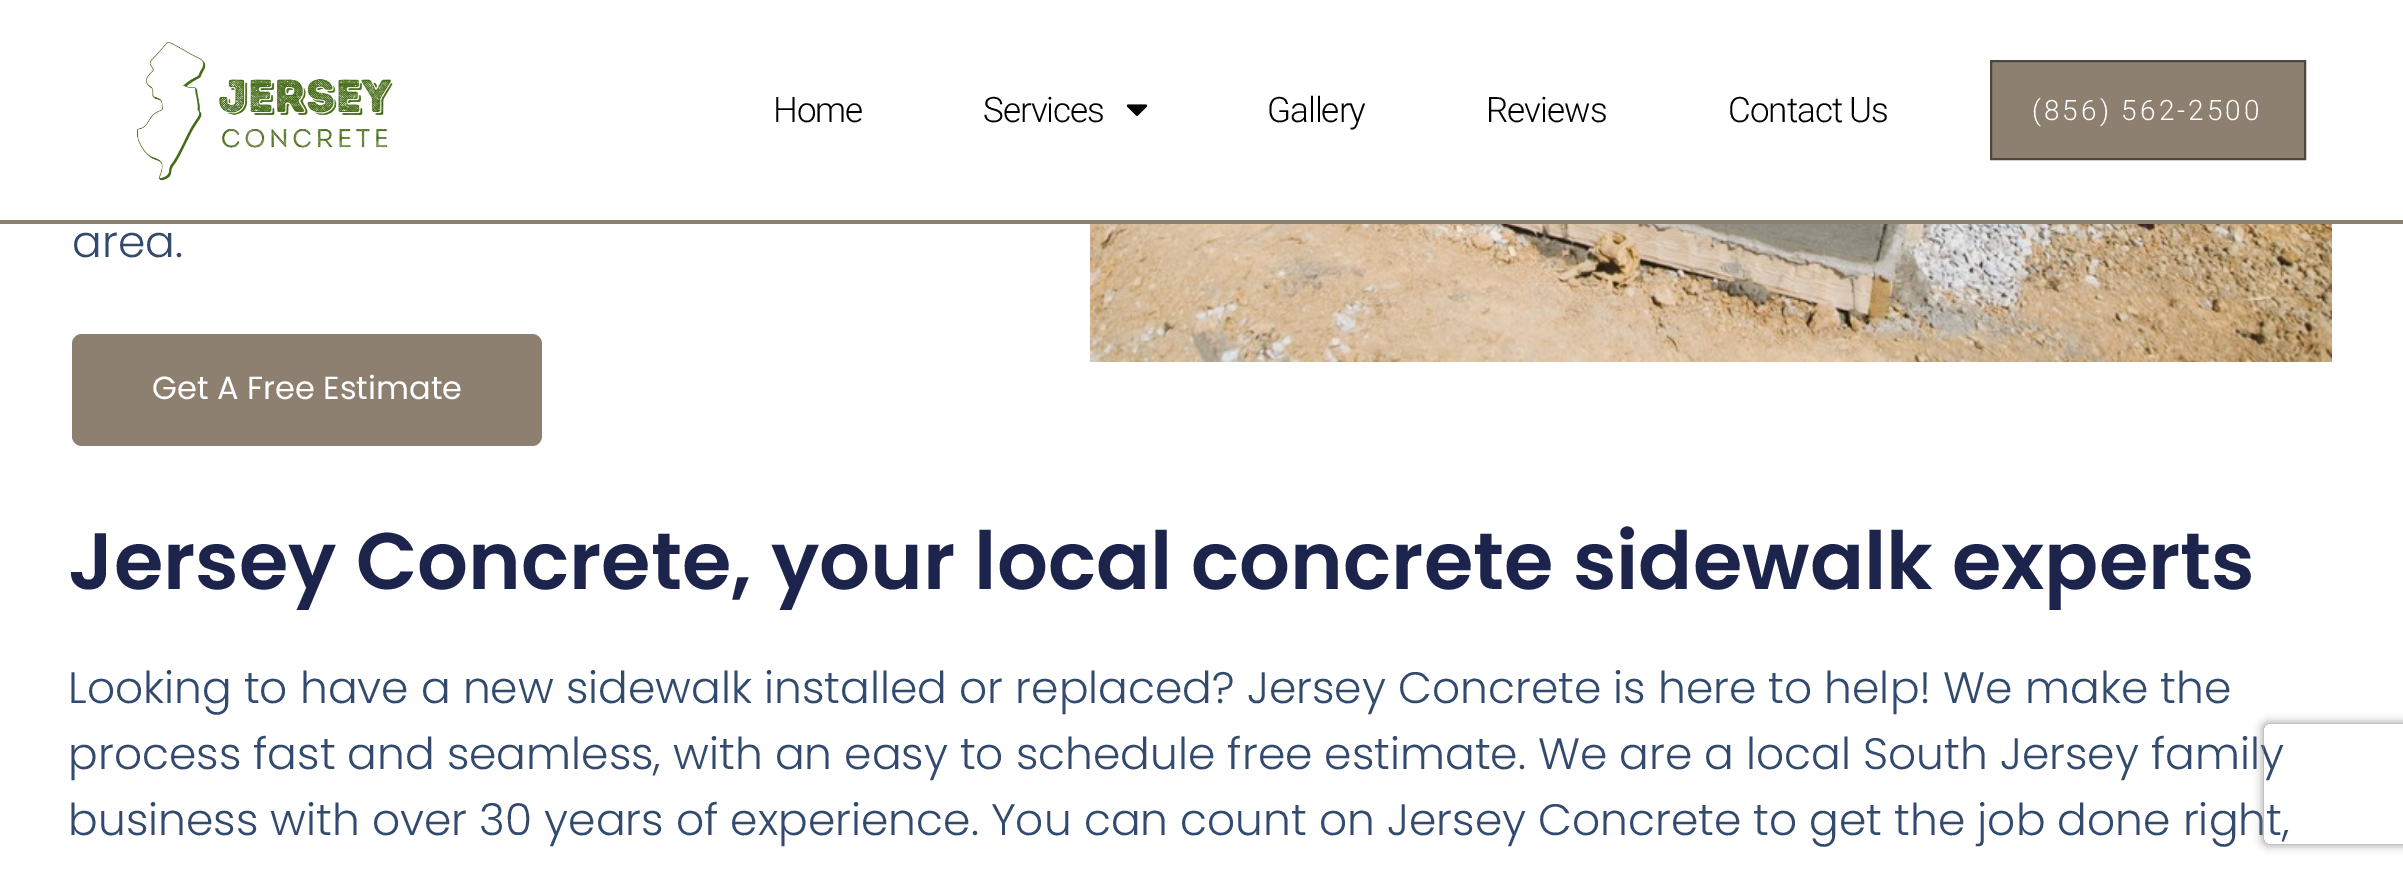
%!PS
<< /PageSize [2403 872] /PageUsesTransparency true >> setpagedevice
/alpha { dup .setfillconstantalpha .setstrokeconstantalpha } def
/roundrect { 5 dict begin { /r /h /w /y /x } { exch def } forall
  x r add y moveto x w add y 2 copy h add r arct x w add y h add x 1 index r arct
  x y h add x y r arct x y 2 copy exch w add exch r arct closepath end } def
/shadow { 12 dict begin { /a /b /q /h /w /y /x } { exch def } forall gsave /was 0 def
  9 -2 -9 { dup b mul 4 div /e exch def 1 sub .425 mul 2.718 exch exp 1 add a .99 .min exch div /now exch def
    1 1 now sub 1 was sub div sub alpha /was now def
    w h .min e 2 mul add 0 gt { x e sub y e sub w e 2 mul add h e 2 mul add
      q e add b .6 mul add w h .min 2 div e add .min 0 .max roundrect fill } if } for grestore end } def
/picture { 5 dict begin { /h /w /y /x /name } { exch def } forall
  gsave x y translate w h scale
  w h 8 [w 0 0 h 0 0] name (r) file false 3 colorimage grestore end } def
0 .pushpdf14devicefilter
0 872 translate 1 -1 scale
4 setmiterlimit
1 setgray
0 0 2403 872 rectfill
0.553 0.502 0.439 setrgbcolor
0 220 2403 4 rectfill
(img1.rgb) 137 42 256 139 picture
/Roboto-Light [35 0 0 -35 0 0] selectfont
0 setgray
773 122 moveto -1 0 (Home) ashow
983 122 moveto -1 0 (Services) ashow
(img2.rgb) 1126 104 22 12 picture
1267 122 moveto -1 0 (Gallery) ashow
1486 122 moveto -1 0 (Reviews) ashow
1728 122 moveto -1 0 (Contact Us) ashow
0.553 0.502 0.439 setrgbcolor
newpath 1991 61 moveto 2305 61 lineto 2305 159 lineto 1991 159 lineto closepath gsave fill grestore
0.294 0.278 0.235 setrgbcolor
2 setlinewidth
stroke
/Roboto-Light [28 0 0 -28 0 0] selectfont
1 setgray
2032 120 moveto 3 0 (\(856\) 562-2500) ashow
/Poppins-Light [44 0 0 -44 0 0] selectfont
0.196 0.29 0.427 setrgbcolor
72 257 moveto (area.) show
0.553 0.502 0.439 setrgbcolor
72 334 470 112 10 roundrect fill
/Poppins-Regular [32 0 0 -32 0 0] selectfont
1 setgray
152 399 moveto (Get A Free Estimate) show
(img3.rgb) 1090 224 1242 138 picture
/Poppins-SemiBold [80 0 0 -80 0 0] selectfont
0.11 0.141 0.294 setrgbcolor
68 589 moveto (Jersey Concrete, your local concrete sidewalk experts) show
/Poppins-Light [44 0 0 -44 0 0] selectfont
0.196 0.29 0.427 setrgbcolor
68 703 moveto (Looking to have a new sidewalk installed or replaced? Jersey Concrete is here to help! We make the) show
68 769 moveto (process fast and seamless, with an easy to schedule free estimate. We are a local South Jersey family) show
68 835 moveto (business with over 30 years of experience. You can count on Jersey Concrete to get the job done right,) show
gsave
newpath 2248 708 moveto 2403 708 lineto 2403 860 lineto 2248 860 lineto closepath 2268 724 moveto 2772 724 lineto 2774 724 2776 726 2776 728 curveto 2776 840 lineto 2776 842 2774 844 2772 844 curveto 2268 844 lineto 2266 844 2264 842 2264 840 curveto 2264 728 lineto 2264 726 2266 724 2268 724 curveto closepath eoclip newpath
0.502 setgray
2264 724 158 120 4 5 1 shadow
grestore
.poppdf14devicefilter showpage
